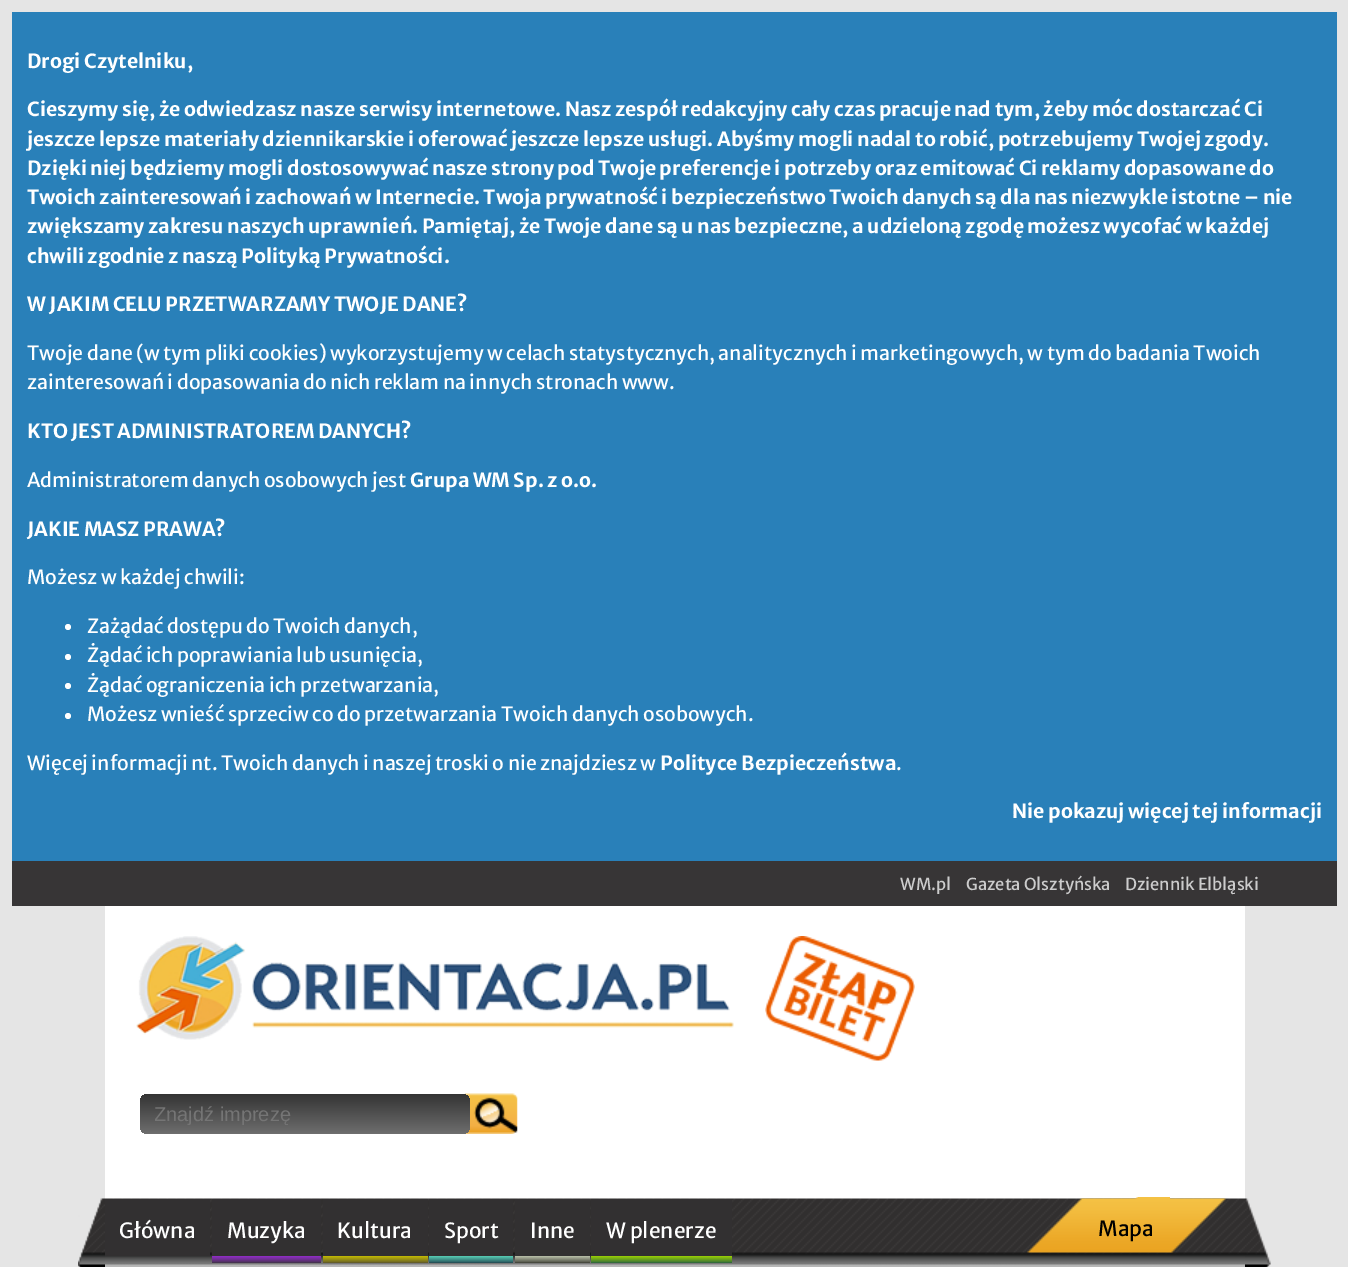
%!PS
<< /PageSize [1348 1267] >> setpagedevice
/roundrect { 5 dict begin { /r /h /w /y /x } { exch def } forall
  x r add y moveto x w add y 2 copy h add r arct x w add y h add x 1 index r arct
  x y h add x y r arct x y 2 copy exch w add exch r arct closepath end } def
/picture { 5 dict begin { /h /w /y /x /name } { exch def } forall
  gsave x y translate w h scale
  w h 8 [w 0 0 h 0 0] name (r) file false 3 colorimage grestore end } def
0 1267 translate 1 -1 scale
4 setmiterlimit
0.898 setgray
0 0 1348 1267 rectfill
0.161 0.502 0.725 setrgbcolor
12 12 1325 849 rectfill
/MerriweatherSans-Bold [19.5 0 0 -19.5 0 0] selectfont
1 setgray
27 68 moveto (Drogi Czytelniku,) show
27 116 moveto (Cieszymy się, że odwiedzasz nasze serwisy internetowe. Nasz zespół redakcyjny cały czas pracuje nad tym, żeby móc dostarczać Ci) show
27 146 moveto (jeszcze lepsze materiały dziennikarskie i oferować jeszcze lepsze usługi. Abyśmy mogli nadal to robić, potrzebujemy Twojej zgody.) show
27 175 moveto (Dzięki niej będziemy mogli dostosowywać nasze strony pod Twoje preferencje i potrzeby oraz emitować Ci reklamy dopasowane do) show
27 204 moveto (Twoich zainteresowań i zachowań w Internecie. Twoja prywatność i bezpieczeństwo Twoich danych są dla nas niezwykle istotne – nie) show
27 233 moveto (zwiększamy zakresu naszych uprawnień. Pamiętaj, że Twoje dane są u nas bezpieczne, a udzieloną zgodę możesz wycofać w każdej) show
27 263 moveto (chwili zgodnie z naszą Polityką Prywatności.) show
27 311 moveto (W JAKIM CELU PRZETWARZAMY TWOJE DANE?) show
/MerriweatherSans-Regular [19.5 0 0 -19.5 0 0] selectfont
27 360 moveto (Twoje dane \(w tym pliki cookies\) wykorzystujemy w celach statystycznych, analitycznych i marketingowych, w tym do badania Twoich) show
27 389 moveto (zainteresowań i dopasowania do nich reklam na innych stronach www.) show
/MerriweatherSans-Bold [19.5 0 0 -19.5 0 0] selectfont
27 438 moveto (KTO JEST ADMINISTRATOREM DANYCH?) show
/MerriweatherSans-Regular [19.5 0 0 -19.5 0 0] selectfont
27 487 moveto (Administratorem danych osobowych jest) show
/MerriweatherSans-Bold [19.5 0 0 -19.5 0 0] selectfont
410 487 moveto (Grupa WM Sp. z o.o.) show
27 536 moveto (JAKIE MASZ PRAWA?) show
/MerriweatherSans-Regular [19.5 0 0 -19.5 0 0] selectfont
27 584 moveto (Możesz w każdej chwili:) show
newpath 68 627 3 0 360 arc closepath fill
87 633 moveto (Zażądać dostępu do Twoich danych,) show
newpath 68 657 3 0 360 arc closepath fill
87 662 moveto (Żądać ich poprawiania lub usunięcia,) show
newpath 68 686 3 0 360 arc closepath fill
87 692 moveto (Żądać ograniczenia ich przetwarzania,) show
newpath 68 716 3 0 360 arc closepath fill
87 721 moveto (Możesz wnieść sprzeciw co do przetwarzania Twoich danych osobowych.) show
27 770 moveto (Więcej informacji nt. Twoich danych i naszej troski o nie znajdziesz w) show
/MerriweatherSans-Bold [19.5 0 0 -19.5 0 0] selectfont
660 770 moveto (Polityce Bezpieczeństwa) show
/MerriweatherSans-Regular [19.5 0 0 -19.5 0 0] selectfont
896 770 moveto (.) show
/MerriweatherSans-Bold [19.5 0 0 -19.5 0 0] selectfont
1012 818 moveto (Nie pokazuj więcej tej informacji) show
0.216 0.208 0.212 setrgbcolor
12 861 1325 45 rectfill
/MerriweatherSans-Regular [16.5 0 0 -16.5 0 0] selectfont
0.8 setgray
900 890 moveto (WM.pl) show
966 890 moveto (Gazeta Olsztyńska) show
1125 890 moveto (Dziennik Elbląski) show
1 setgray
105 906 1140 361 rectfill
(img1.rgb) 136 936 598 104 picture
(img2.rgb) 765 936 150 125 picture
(img3.rgb) 465 1093 53 41 picture
gsave 140 1094 330 40 8 roundrect clip newpath
<< /ShadingType 2 /ColorSpace /DeviceRGB /Coords [305 1094 305 1134] /Extend [true true] /Function << /FunctionType 2 /Domain [0 1] /C0 [0.204 0.204 0.204] /C1 [0.431 0.431 0.431] /N 1 >> >> shfill grestore
gsave
155 1103 300 22 rectclip
/LiberationSans-Regular [20 0 0 -20 0 0] selectfont
0.459 setgray
154 1121 moveto (Znajdź imprezę) show
grestore
(img4.rgb) 105 1198 1140 69 picture
(img5.rgb) 78 1198 27 69 picture
0.196 0.188 0.192 setrgbcolor
105 1199 105 57 rectfill
/MerriweatherSans-Regular [21 0 0 -21 0 0] selectfont
1 setgray
119 1238 moveto (Główna) show
gsave newpath 212 1256 moveto 321 1256 lineto 321 1263 lineto 212 1263 lineto closepath clip newpath
<< /ShadingType 2 /ColorSpace /DeviceRGB /Coords [266 1199 266 1263] /Extend [true true] /Function << /FunctionType 3 /Domain [0 1] /Functions [<< /FunctionType 2 /Domain [0 1] /C0 [0.6 0.176 0.835] /C1 [0.6 0.176 0.835] /N 1 >> << /FunctionType 2 /Domain [0 1] /C0 [0.6 0.176 0.835] /C1 [0.275 0.2 0.318] /N 1 >>] /Bounds [0.88] /Encode [0 1 0 1] >> >> shfill grestore
0.196 0.188 0.192 setrgbcolor
212 1199 109 57 rectfill
1 setgray
227 1238 moveto (Muzyka) show
gsave newpath 323 1256 moveto 428 1256 lineto 428 1263 lineto 323 1263 lineto closepath clip newpath
<< /ShadingType 2 /ColorSpace /DeviceRGB /Coords [375 1199 375 1263] /Extend [true true] /Function << /FunctionType 3 /Domain [0 1] /Functions [<< /FunctionType 2 /Domain [0 1] /C0 [0.804 0.769 0] /C1 [0.804 0.769 0] /N 1 >> << /FunctionType 2 /Domain [0 1] /C0 [0.804 0.769 0] /C1 [0.396 0.369 0.157] /N 1 >>] /Bounds [0.88] /Encode [0 1 0 1] >> >> shfill grestore
0.196 0.188 0.192 setrgbcolor
323 1199 105 57 rectfill
1 setgray
337 1238 moveto (Kultura) show
gsave newpath 429 1256 moveto 513 1256 lineto 513 1263 lineto 429 1263 lineto closepath clip newpath
<< /ShadingType 2 /ColorSpace /DeviceRGB /Coords [471 1199 471 1263] /Extend [true true] /Function << /FunctionType 3 /Domain [0 1] /Functions [<< /FunctionType 2 /Domain [0 1] /C0 [0.365 0.855 0.749] /C1 [0.365 0.855 0.749] /N 1 >> << /FunctionType 2 /Domain [0 1] /C0 [0.365 0.855 0.749] /C1 [0.149 0.318 0.345] /N 1 >>] /Bounds [0.88] /Encode [0 1 0 1] >> >> shfill grestore
0.196 0.188 0.192 setrgbcolor
429 1199 84 57 rectfill
1 setgray
444 1238 moveto (Sport) show
gsave newpath 515 1256 moveto 590 1256 lineto 590 1263 lineto 515 1263 lineto closepath clip newpath
<< /ShadingType 2 /ColorSpace /DeviceRGB /Coords [552 1199 552 1263] /Extend [true true] /Function << /FunctionType 3 /Domain [0 1] /Functions [<< /FunctionType 2 /Domain [0 1] /C0 [0.784 0.808 0.714] /C1 [0.784 0.808 0.714] /N 1 >> << /FunctionType 2 /Domain [0 1] /C0 [0.784 0.808 0.714] /C1 [0.278 0.286 0.243] /N 1 >>] /Bounds [0.88] /Encode [0 1 0 1] >> >> shfill grestore
0.196 0.188 0.192 setrgbcolor
515 1199 75 57 rectfill
1 setgray
530 1238 moveto (Inne) show
gsave newpath 591 1256 moveto 732 1256 lineto 732 1263 lineto 591 1263 lineto closepath clip newpath
<< /ShadingType 2 /ColorSpace /DeviceRGB /Coords [662 1199 662 1263] /Extend [true true] /Function << /FunctionType 3 /Domain [0 1] /Functions [<< /FunctionType 2 /Domain [0 1] /C0 [0.647 0.863 0] /C1 [0.647 0.863 0] /N 1 >> << /FunctionType 2 /Domain [0 1] /C0 [0.647 0.863 0] /C1 [0.2 0.42 0.227] /N 1 >>] /Bounds [0.88] /Encode [0 1 0 1] >> >> shfill grestore
0.196 0.188 0.192 setrgbcolor
591 1199 141 57 rectfill
1 setgray
606 1238 moveto (W plenerze) show
(img6.rgb) 1083 1198 87 55 picture
(img7.rgb) 1134 1197 36 2 picture
(img8.rgb) 1027 1198 56 55 picture
0 setgray
1098 1236 moveto (Mapa) show
(img9.rgb) 1170 1198 56 55 picture
(img10.rgb) 1245 1198 26 69 picture
showpage
